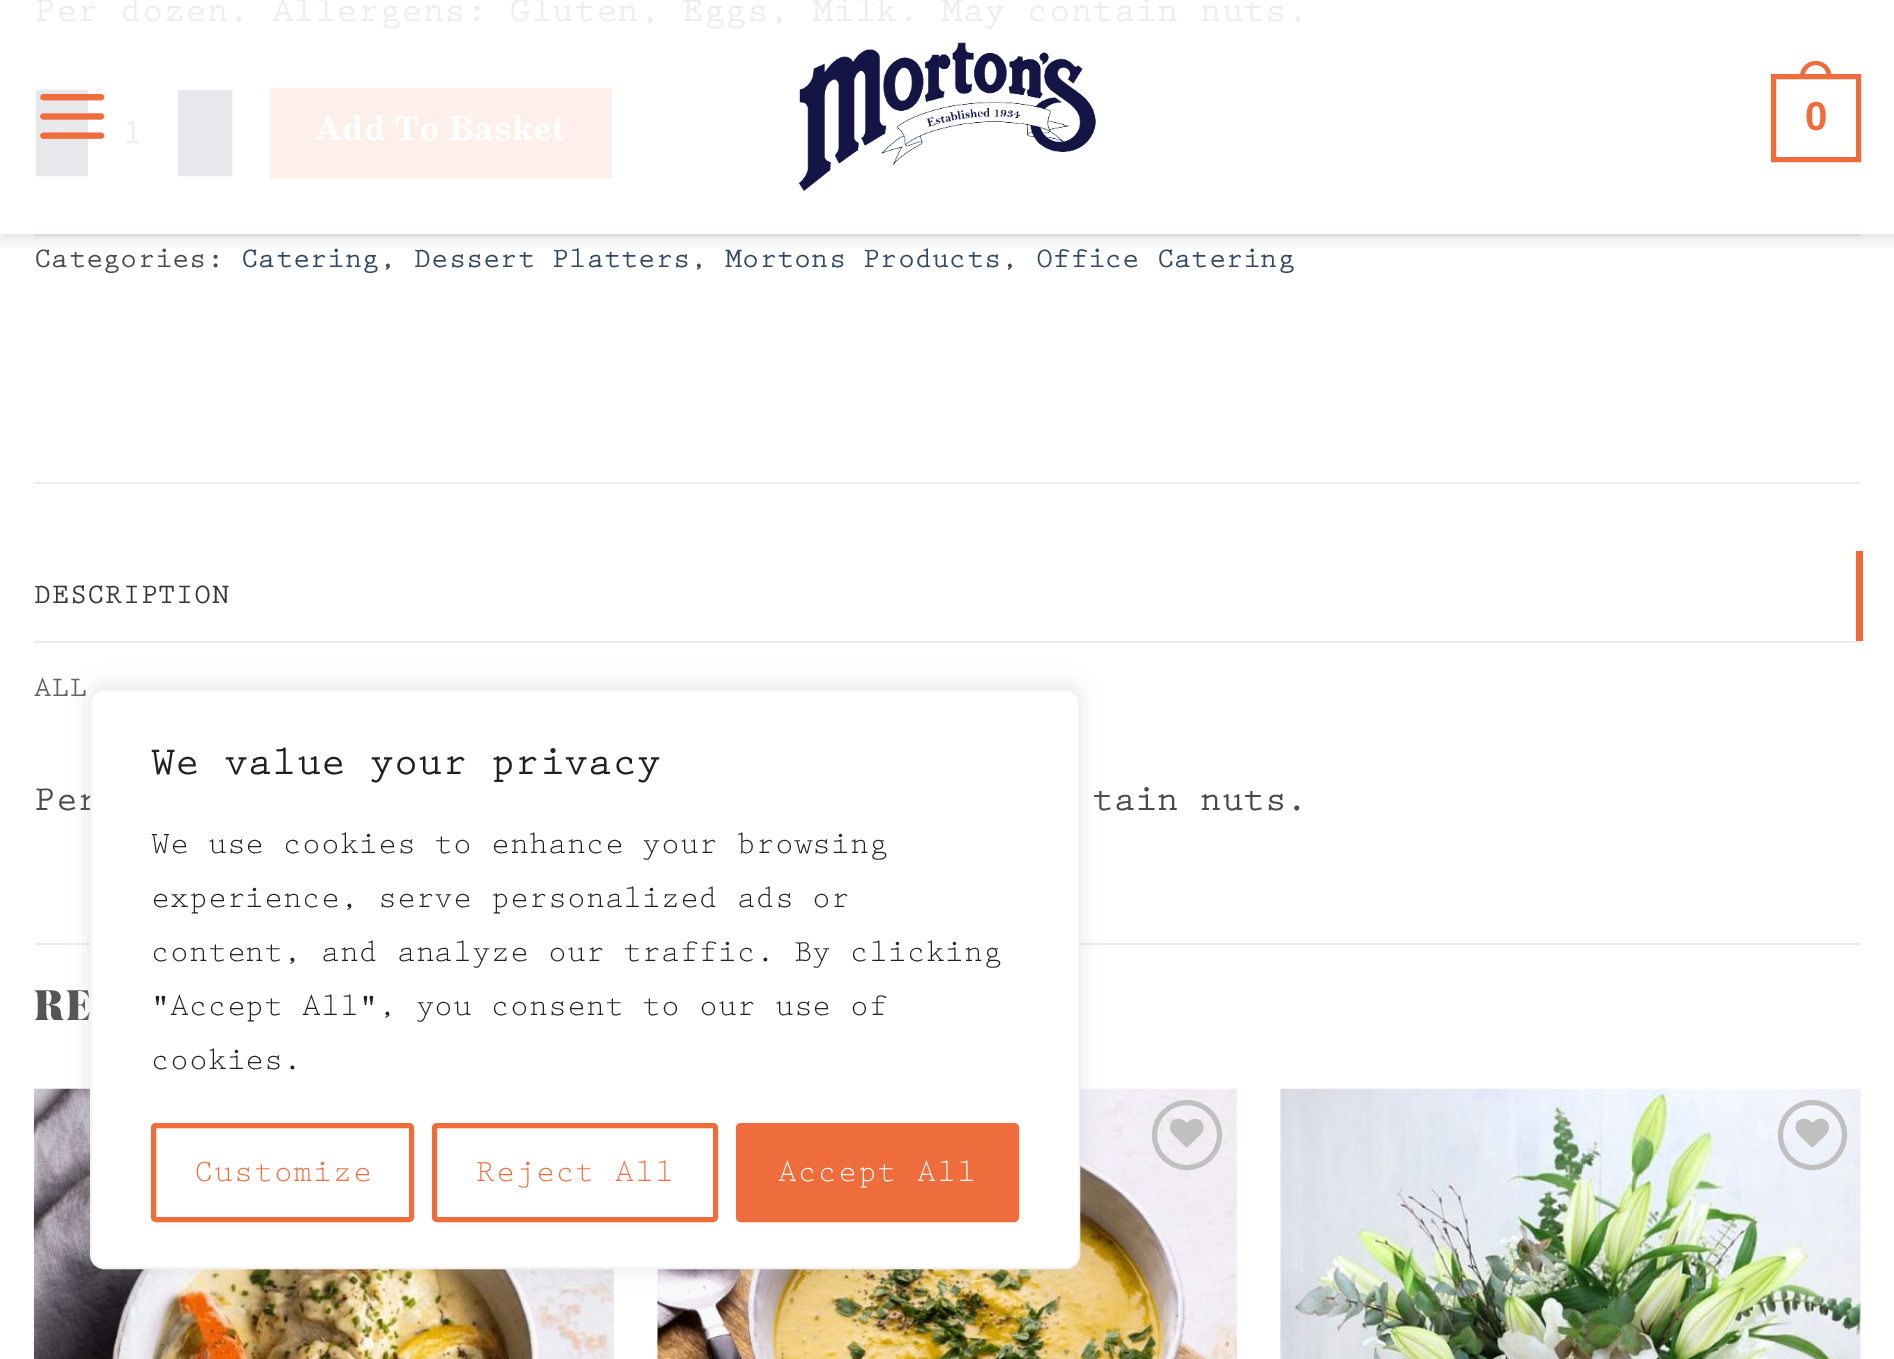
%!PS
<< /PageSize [1894 1359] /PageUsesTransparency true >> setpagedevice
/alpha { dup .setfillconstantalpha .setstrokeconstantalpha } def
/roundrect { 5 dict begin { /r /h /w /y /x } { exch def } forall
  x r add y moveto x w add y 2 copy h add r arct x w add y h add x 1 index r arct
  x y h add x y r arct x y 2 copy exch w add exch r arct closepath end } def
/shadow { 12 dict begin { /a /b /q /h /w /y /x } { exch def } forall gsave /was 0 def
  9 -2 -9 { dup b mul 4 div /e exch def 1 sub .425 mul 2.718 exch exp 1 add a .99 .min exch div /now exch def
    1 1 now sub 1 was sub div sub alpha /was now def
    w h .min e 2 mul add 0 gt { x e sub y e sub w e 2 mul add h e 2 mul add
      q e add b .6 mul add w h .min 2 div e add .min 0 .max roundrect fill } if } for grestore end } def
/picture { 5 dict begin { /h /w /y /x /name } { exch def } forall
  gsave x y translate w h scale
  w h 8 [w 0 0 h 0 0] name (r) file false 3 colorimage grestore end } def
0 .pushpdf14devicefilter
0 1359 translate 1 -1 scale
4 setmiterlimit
1 setgray
0 0 1894 1359 rectfill
/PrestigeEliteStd-Bold [36 0 0 -36 0 0] selectfont
0.929 setgray
34 21 moveto (Per dozen. Allergens: Gluten, Eggs, Milk. May contain nuts.) show
0.91 0.91 0.925 setrgbcolor
36 90 52 86 rectfill
0.988 setgray
34 88 54 2 rectfill
34 176 54 2 rectfill
34 88 2 90 rectfill
0.929 setgray
122 143 moveto (1) show
0.91 0.91 0.925 setrgbcolor
178 90 54 86 rectfill
0.988 setgray
178 88 56 2 rectfill
232 88 2 90 rectfill
178 176 56 2 rectfill
0.992 0.941 0.922 setrgbcolor
newpath 271 89 moveto 611 89 lineto 611 177 lineto 271 177 lineto closepath gsave fill grestore
0.988 0.941 0.922 setrgbcolor
2 setlinewidth
stroke
/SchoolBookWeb-Bold [35 0 0 -35 0 0] selectfont
1 setgray
314 140 moveto 1 0 (Add To Basket) ashow
0.988 setgray
2.2 setlinewidth
[2.25 2.25] 0 setdash
newpath 34 226 moveto 1861 226 lineto stroke
/PrestigeEliteStd-Bold [28.75 0 0 -28.75 0 0] selectfont
0.29 setgray
34 267 moveto (Categories:) show
0.2 0.282 0.384 setrgbcolor
241 267 moveto (Catering) show
0.29 setgray
379 267 moveto (,) show
0.2 0.282 0.384 setrgbcolor
414 267 moveto (Dessert Platters) show
0.29 setgray
690 267 moveto (,) show
0.2 0.282 0.384 setrgbcolor
725 267 moveto (Mortons Products) show
0.29 setgray
1001 267 moveto (,) show
0.2 0.282 0.384 setrgbcolor
1036 267 moveto (Office Catering) show
0.925 setgray
34 482 1827 2 rectfill
0.212 setgray
34 603 moveto 0.5 0 (DESCRIPTION) ashow
0.937 0.412 0.22 setrgbcolor
1856 551 7 90 rectfill
0.925 setgray
34 641 1827 2 rectfill
0.396 setgray
34 696 moveto 0.5 0 (ALL) ashow
/PrestigeEliteStd-Bold [36 0 0 -36 0 0] selectfont
0.29 setgray
34 810 moveto (Per) show
1092 810 moveto (tain nuts.) show
0.925 setgray
34 943 1827 2 rectfill
/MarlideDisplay-ExtraBold [45 0 0 -45 0 0] selectfont
0.333 setgray
34 1020 moveto 2 0 (RE) ashow
(img1.rgb) 33 1088 581 271 picture
(img2.rgb) 657 1088 581 271 picture
0.753 setgray
5 setlinewidth
[] 0 setdash
newpath 1187 1135 32.5 0 360 arc closepath stroke
(img3.rgb) 1170 1118 34 30 picture
(img4.rgb) 1280 1088 581 271 picture
1780.5 1102.5 64 65 32 roundrect stroke
(img5.rgb) 1795 1118 34 30 picture
gsave
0 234 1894 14 rectclip
0 setgray
2 2 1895 234 0 11 0.15 shadow
grestore
(img6.rgb) 40 94 65 45 picture
(img7.rgb) 798 42 298 149 picture
0.937 0.427 0.239 setrgbcolor
1773.5 76.5 85 83 rectstroke
newpath 1816 61 moveto 1824.5 61 1831.5 68 1831.5 76.5 curveto 1831.5 79 lineto 1800 79 lineto 1800 76.5 lineto 1800 68 1807 61 1816 61 curveto closepath 1816 65 moveto 1822 65 1827 70.5 1827 76.5 curveto 1827 79 lineto 1804.5 79 lineto 1804.5 76.5 lineto 1804.5 70.5 1809.5 65 1816 65 curveto closepath eofill
/LiberationSans-Bold [40.5 0 0 -40.5 0 0] selectfont
1805 130 moveto (0) show
0.855 setgray
34 234 1827 2 rectfill
0.675 0.671 0.671 setrgbcolor
90 686 990 581 14 11 0.3 shadow
1 setgray
91 690 988 578 13 roundrect gsave fill grestore
0.957 setgray
2 setlinewidth
stroke
/PrestigeEliteStd-Bold [40.5 0 0 -40.5 0 0] selectfont
0.129 setgray
151 774 moveto (We value your privacy) show
/PrestigeEliteStd-Regular [31.5 0 0 -31.5 0 0] selectfont
151 853 moveto (We use cookies to enhance your browsing) show
151 907 moveto (experience, serve personalized ads or) show
151 961 moveto (content, and analyze our traffic. By clicking) show
151 1015 moveto ("Accept All", you consent to our use of) show
151 1069 moveto (cookies.) show
0.937 0.427 0.239 setrgbcolor
5 setlinewidth
153.5 1125.5 258 94 2.5 roundrect stroke
194 1181 moveto 1 0 (Customize) ashow
434.5 1125.5 281 94 2.5 roundrect stroke
476 1181 moveto 1 0 (Reject All) ashow
738.5 1125.5 278 94 2.5 roundrect gsave fill grestore
stroke
1 setgray
778 1181 moveto 1 0 (Accept All) ashow
.poppdf14devicefilter showpage
